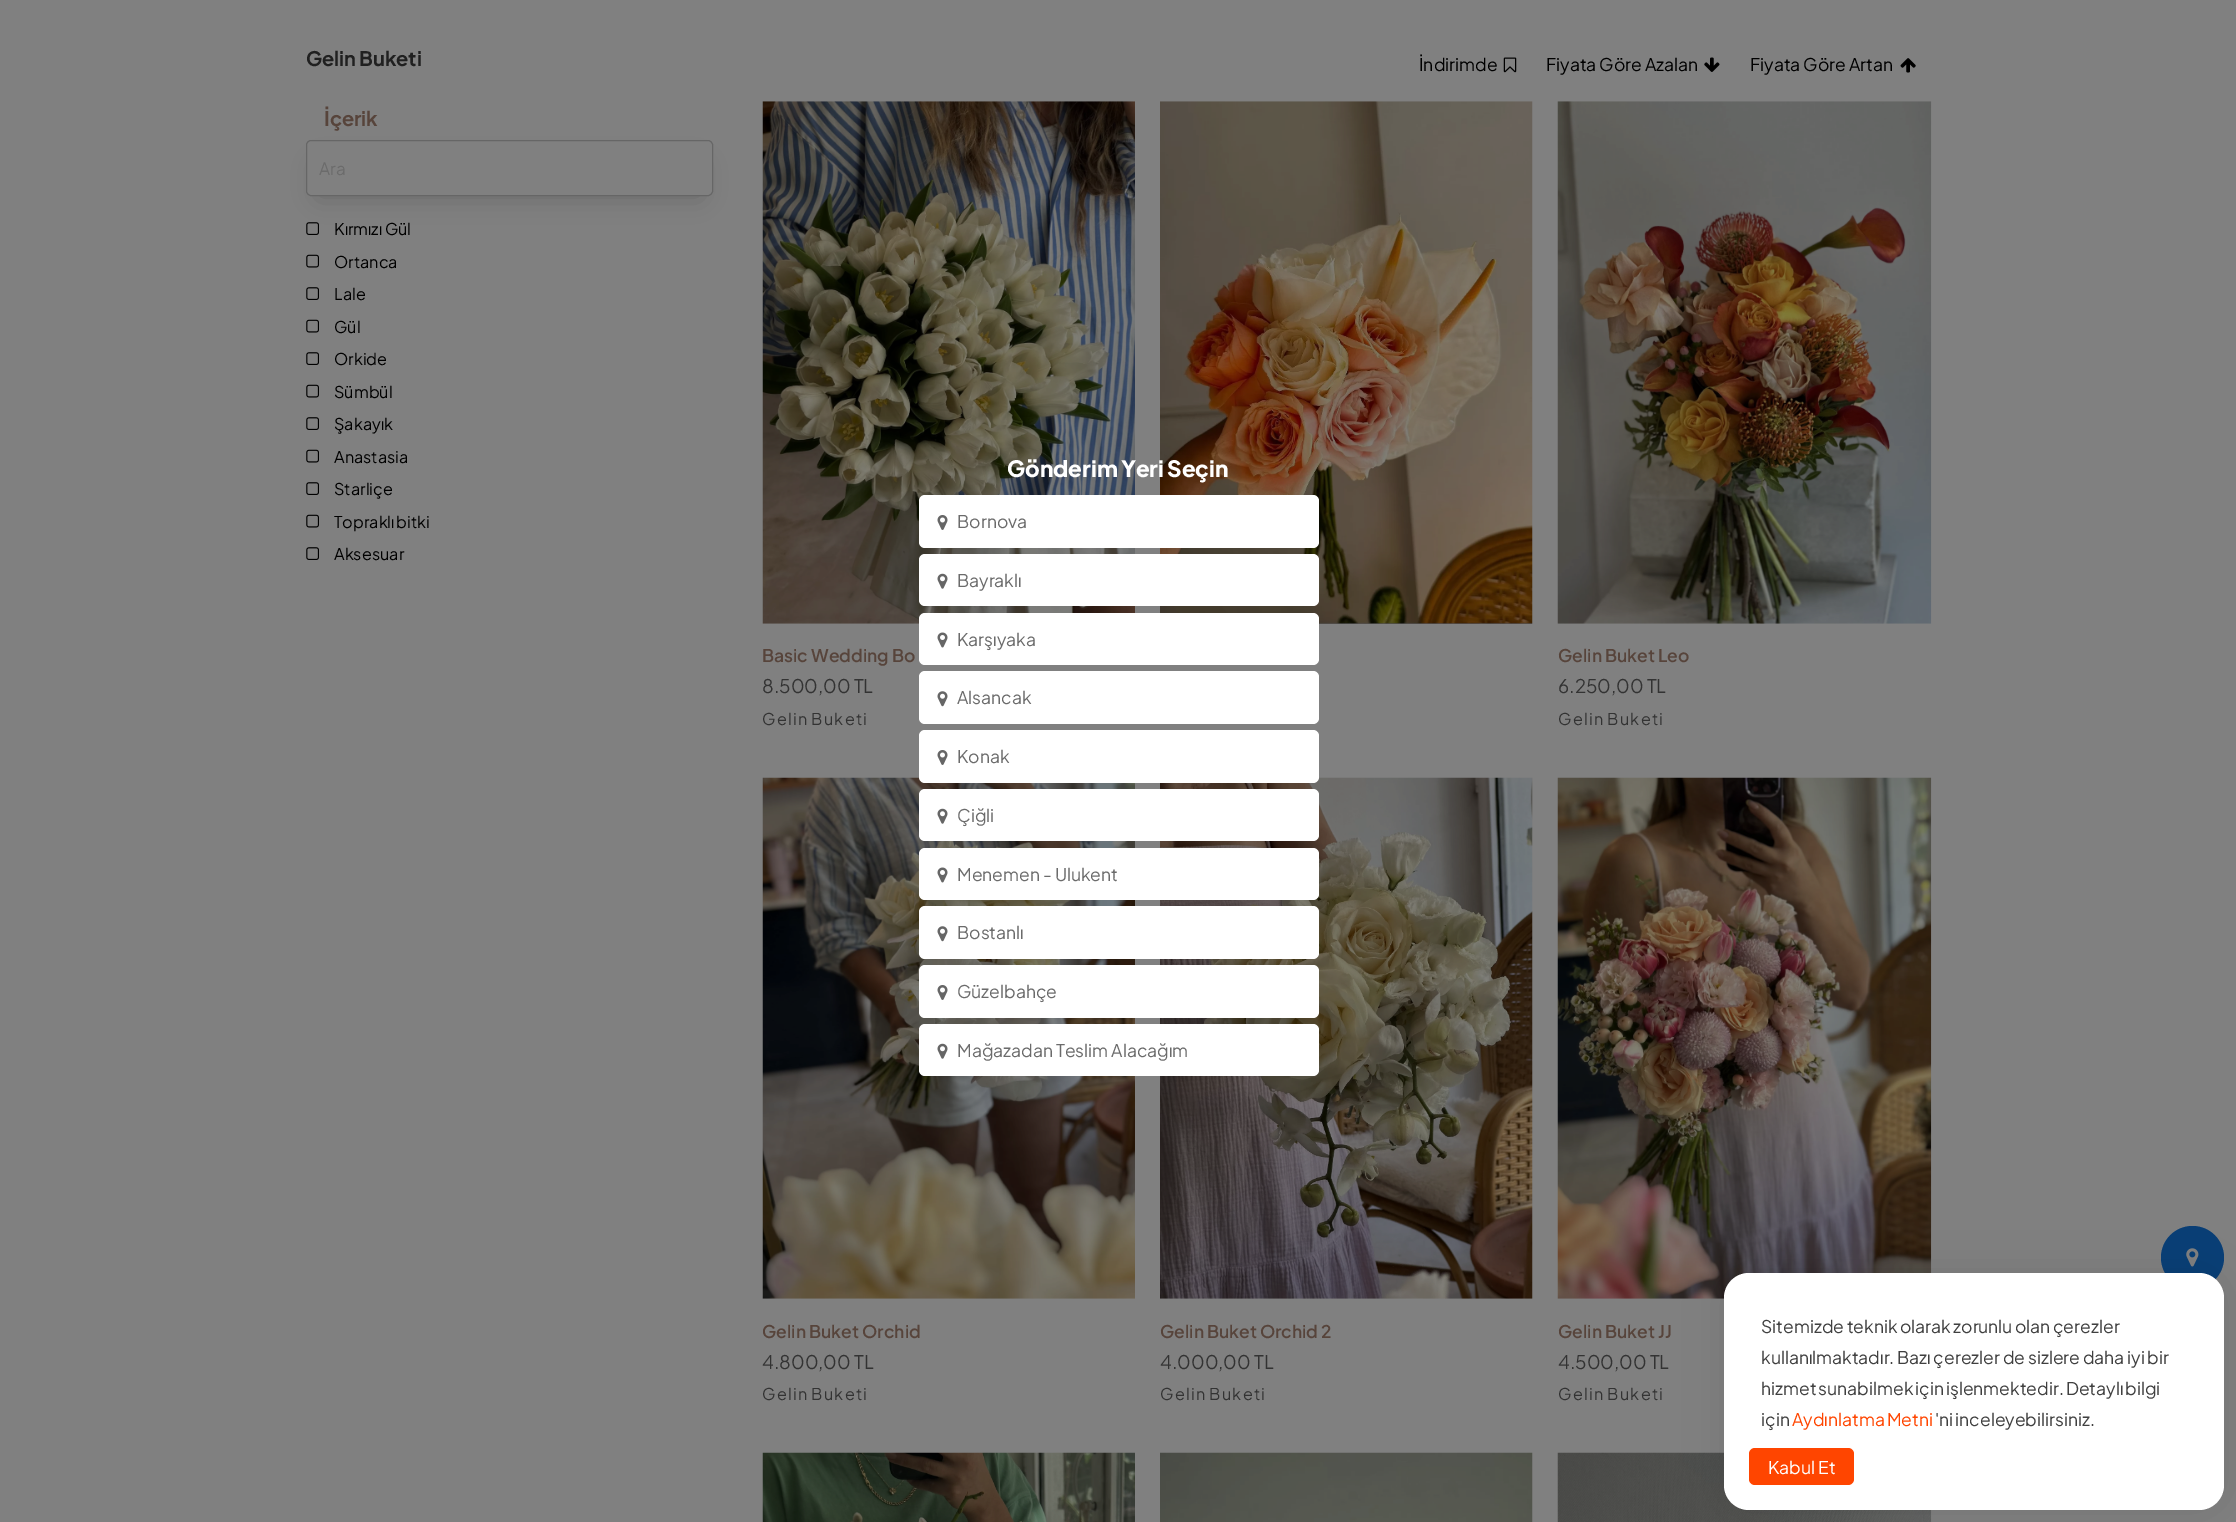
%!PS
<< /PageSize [2236 1522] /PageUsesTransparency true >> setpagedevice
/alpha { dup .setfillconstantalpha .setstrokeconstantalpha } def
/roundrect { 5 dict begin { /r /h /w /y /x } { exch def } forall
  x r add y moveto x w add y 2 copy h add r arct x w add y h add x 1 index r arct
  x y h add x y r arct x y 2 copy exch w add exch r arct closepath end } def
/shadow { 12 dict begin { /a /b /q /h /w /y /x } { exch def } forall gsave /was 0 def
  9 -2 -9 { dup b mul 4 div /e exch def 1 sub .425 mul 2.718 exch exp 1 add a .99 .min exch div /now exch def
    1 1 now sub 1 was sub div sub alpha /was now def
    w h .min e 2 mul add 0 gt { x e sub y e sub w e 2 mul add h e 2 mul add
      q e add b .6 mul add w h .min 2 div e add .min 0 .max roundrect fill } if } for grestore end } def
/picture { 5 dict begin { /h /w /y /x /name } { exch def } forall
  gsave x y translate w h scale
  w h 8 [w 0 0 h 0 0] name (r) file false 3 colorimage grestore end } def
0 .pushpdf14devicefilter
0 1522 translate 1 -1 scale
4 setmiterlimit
0.502 setgray
0 0 2236 1522 rectfill
/PlusJakartaSans-Bold [20 0 0 -20 0 0] selectfont
0.125 setgray
306 66 moveto -1 0 32 (Gelin Buketi) widthshow
0.341 0.267 0.231 setrgbcolor
324 126 moveto (İçerik) show
0 setgray
319 165 381 31 0 12.5 0.2 shadow
0.502 setgray
306.5 140.5 406 55 4.5 roundrect gsave fill grestore
0.4 setgray
stroke
/PlusJakartaSans-Regular [17 0 0 -17 0 0] selectfont
0.42 setgray
319 175 moveto (Ara) show
(img1.rgb) 306 222 13 13 picture
/PlusJakartaSans-Regular [16.25 0 0 -16.25 0 0] selectfont
0 setgray
334 235 moveto (Kırmızı Gül) show
(img2.rgb) 306 254 13 14 picture
334 268 moveto (Ortanca) show
(img3.rgb) 306 287 13 13 picture
334 300 moveto (Lale) show
(img2.rgb) 306 319 13 14 picture
334 333 moveto (Gül) show
(img3.rgb) 306 352 13 13 picture
334 365 moveto (Orkide) show
(img2.rgb) 306 384 13 14 picture
334 398 moveto (Sümbül) show
(img3.rgb) 306 417 13 13 picture
334 430 moveto (Şakayık) show
(img2.rgb) 306 449 13 14 picture
334 463 moveto (Anastasia) show
(img3.rgb) 306 482 13 13 picture
334 495 moveto (Starliçe) show
(img2.rgb) 306 514 13 14 picture
334 528 moveto -1 0 32 (Topraklı bitki) widthshow
(img3.rgb) 306 547 13 13 picture
334 560 moveto (Aksesuar) show
/PlusJakartaSans-Regular [17.5 0 0 -17.5 0 0] selectfont
1419 71 moveto (İndirimde) show
(img4.rgb) 1503 57 14 16 picture
1546 71 moveto (Fiyata Göre Azalan) show
(img5.rgb) 1704 57 16 15 picture
1750 71 moveto (Fiyata Göre Artan) show
(img6.rgb) 1900 58 16 15 picture
(img7.rgb) 1160 101 373 523 picture
(img8.rgb) 762 101 373 523 picture
/PlusJakartaSans-SemiBold [17.5 0 0 -17.5 0 0] selectfont
0.341 0.267 0.231 setrgbcolor
762 662 moveto (Basic Wedding Bo) show
/PlusJakartaSans-Regular [18.75 0 0 -18.75 0 0] selectfont
0.2 setgray
762 693 moveto (8.500,00 TL) show
/PlusJakartaSans-Regular [16.25 0 0 -16.25 0 0] selectfont
762 725 moveto -1 0 32 1.25 0 (Gelin Buketi) awidthshow
(img9.rgb) 1557 101 375 523 picture
/PlusJakartaSans-SemiBold [17.5 0 0 -17.5 0 0] selectfont
0.341 0.267 0.231 setrgbcolor
1558 662 moveto (Gelin Buket Leo) show
/PlusJakartaSans-Regular [18.75 0 0 -18.75 0 0] selectfont
0.2 setgray
1558 693 moveto (6.250,00 TL) show
/PlusJakartaSans-Regular [16.25 0 0 -16.25 0 0] selectfont
1558 725 moveto -1 0 32 1.25 0 (Gelin Buketi) awidthshow
(img10.rgb) 762 777 373 522 picture
gsave
763 778 372 650 rectclip
/PlusJakartaSans-SemiBold [17.5 0 0 -17.5 0 0] selectfont
0.341 0.267 0.231 setrgbcolor
762 1338 moveto (Gelin Buket Orchid) show
grestore
/PlusJakartaSans-Regular [18.75 0 0 -18.75 0 0] selectfont
762 1369 moveto (4.800,00 TL) show
/PlusJakartaSans-Regular [16.25 0 0 -16.25 0 0] selectfont
762 1400 moveto -1 0 32 1.25 0 (Gelin Buketi) awidthshow
(img11.rgb) 1160 777 373 522 picture
/PlusJakartaSans-SemiBold [17.5 0 0 -17.5 0 0] selectfont
0.341 0.267 0.231 setrgbcolor
1160 1338 moveto -0.25 0 32 (Gelin Buket Orchid 2) widthshow
/PlusJakartaSans-Regular [18.75 0 0 -18.75 0 0] selectfont
0.2 setgray
1160 1369 moveto (4.000,00 TL) show
/PlusJakartaSans-Regular [16.25 0 0 -16.25 0 0] selectfont
1160 1400 moveto -1 0 32 1.25 0 (Gelin Buketi) awidthshow
(img12.rgb) 1557 777 375 522 picture
/PlusJakartaSans-SemiBold [17.5 0 0 -17.5 0 0] selectfont
0.341 0.267 0.231 setrgbcolor
1558 1338 moveto (Gelin Buket JJ) show
/PlusJakartaSans-Regular [18.75 0 0 -18.75 0 0] selectfont
0.2 setgray
1558 1369 moveto (4.500,00 TL) show
/PlusJakartaSans-Regular [16.25 0 0 -16.25 0 0] selectfont
1558 1400 moveto -1 0 32 1.25 0 (Gelin Buketi) awidthshow
(img13.rgb) 762 1452 373 70 picture
(img14.rgb) 1160 1452 373 70 picture
(img15.rgb) 1557 1452 375 70 picture
/PlusJakartaSans-ExtraBold [22.5 0 0 -22.5 0 0] selectfont
1 setgray
1007 477 moveto -1 0 32 (Gönderim Yeri Seçin) widthshow
919 495 400 53 6 roundrect fill
(img16.rgb) 937 515 11 15 picture
/PlusJakartaSans-Regular [17.5 0 0 -17.5 0 0] selectfont
0.42 setgray
957 528 moveto (Bornova) show
1 setgray
919 554 400 52 6 roundrect fill
(img17.rgb) 937 573 11 16 picture
0.42 setgray
957 587 moveto (Bayraklı) show
1 setgray
919 613 400 52 6 roundrect fill
(img18.rgb) 937 632 11 16 picture
0.42 setgray
957 646 moveto (Karşıyaka) show
1 setgray
919 671 400 53 6 roundrect fill
(img19.rgb) 937 691 11 16 picture
0.42 setgray
957 704 moveto (Alsancak) show
1 setgray
919 730 400 53 6 roundrect fill
(img16.rgb) 937 750 11 15 picture
0.42 setgray
957 763 moveto (Konak) show
1 setgray
919 789 400 52 6 roundrect fill
(img17.rgb) 937 808 11 16 picture
0.42 setgray
957 822 moveto (Çiğli) show
1 setgray
919 848 400 52 6 roundrect fill
(img18.rgb) 937 867 11 16 picture
0.42 setgray
957 881 moveto (Menemen - Ulukent) show
1 setgray
919 906 400 53 6 roundrect fill
(img19.rgb) 937 926 11 16 picture
0.42 setgray
957 939 moveto (Bostanlı) show
1 setgray
919 965 400 53 6 roundrect fill
(img16.rgb) 937 985 11 15 picture
0.42 setgray
957 998 moveto (Güzelbahçe) show
1 setgray
919 1024 400 52 6 roundrect fill
(img17.rgb) 937 1043 11 16 picture
0.42 setgray
957 1057 moveto (Mağazadan Teslim Alacağım) show
0.035 0.243 0.459 setrgbcolor
newpath 2192.5 1257.5 31.5 0 360 arc closepath fill
(img20.rgb) 2186 1248 13 19 picture
0 setgray
1724 1273 500 237 25 19 0.1 shadow
1 setgray
1724 1273 500 237 25 roundrect fill
0.251 setgray
1761 1333 moveto -0.5 0 32 (Sitemizde teknik olarak zorunlu olan çerezler) widthshow
1761 1364 moveto -0.25 0 32 (kullanılmaktadır. Bazı çerezler de sizlere daha iyi bir) widthshow
1761 1395 moveto -1 0 32 (hizmet sunabilmek için işlenmektedir. Detaylı bilgi) widthshow
1761 1426 moveto (için) show
1 0.271 0 setrgbcolor
1792 1426 moveto -1 0 32 (Aydınlatma Metni) widthshow
0.251 setgray
1935 1426 moveto -1 0 32 ('ni inceleyebilirsiniz.) widthshow
1 0.271 0 setrgbcolor
1749 1448 105 37 6 roundrect fill
1 setgray
1768 1474 moveto (Kabul Et) show
.poppdf14devicefilter showpage
